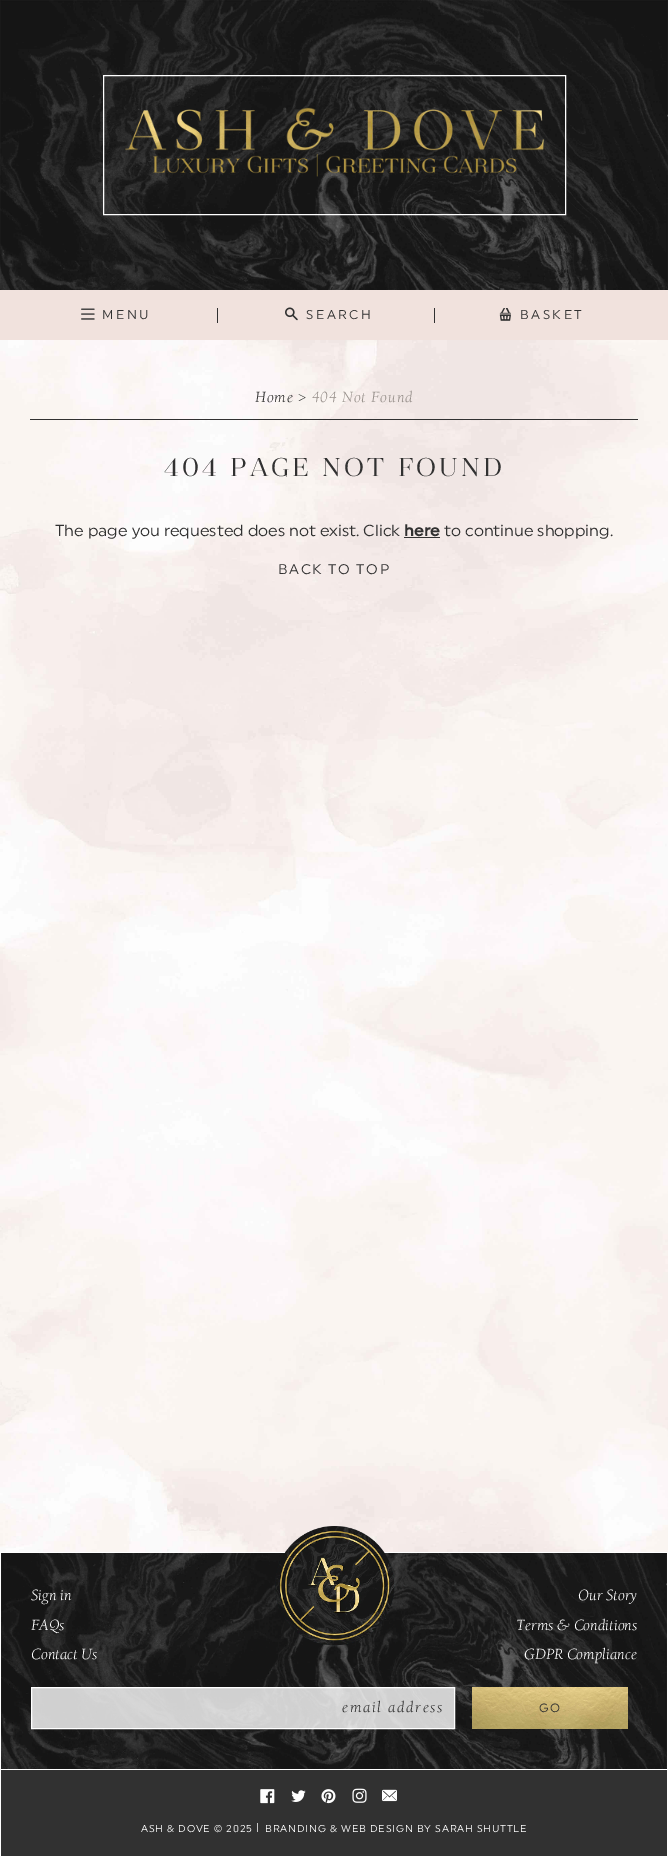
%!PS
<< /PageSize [668 1857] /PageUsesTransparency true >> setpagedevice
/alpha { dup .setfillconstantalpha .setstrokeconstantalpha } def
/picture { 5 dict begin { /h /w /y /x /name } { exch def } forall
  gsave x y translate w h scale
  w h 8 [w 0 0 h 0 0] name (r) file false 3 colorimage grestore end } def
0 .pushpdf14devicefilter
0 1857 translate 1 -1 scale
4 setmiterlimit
1 setgray
0 0 668 1857 rectfill
(img1.rgb) 0 0 668 290 picture
103.5 75.5 462 139 rectstroke
(img2.rgb) 125 107 419 70 picture
0.945 0.886 0.867 setrgbcolor
0 290 668 50 rectfill
(img3.rgb) 81 308 14 12 picture
/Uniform-Regular [12.75 0 0 -12.75 0 0] selectfont
0.192 setgray
102 319 moveto 2.5 0 (MENU) ashow
217 308 1 15 rectfill
(img4.rgb) 285 307 13 14 picture
306 319 moveto 2.5 0 (SEARCH) ashow
434 308 1 15 rectfill
(img5.rgb) 499 308 12 13 picture
520 319 moveto 2.5 0 (BASKET) ashow
(img6.rgb) 0 340 668 1212 picture
30 419 608 1 rectfill
/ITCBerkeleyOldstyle-Italic [16 0 0 -16 0 0] selectfont
255 402 moveto 0.8 0 (Home >) ashow
0.592 0.565 0.545 setrgbcolor
312 402 moveto 0.8 0 (404 Not Found) ashow
/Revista-Regular [27.75 0 0 -27.75 0 0] selectfont
0.192 setgray
164 476 moveto 3.25 0 (404 PAGE NOT FOUND) ashow
/Uniform-Regular [16 0 0 -16 0 0] selectfont
55 536 moveto (The page you requested does not exist. Click) show
/Uniform-Bold [16 0 0 -16 0 0] selectfont
404 536 moveto (here) show
404 537 36 1 rectfill
/Uniform-Regular [16 0 0 -16 0 0] selectfont
444 536 moveto (to continue shopping.) show
/Uniform-Regular [14 0 0 -14 0 0] selectfont
278 574 moveto 1.6 0 (BACK TO TOP) ashow
(img7.rgb) 1 1553 666 216 picture
(img8.rgb) 275 1526 120 120 picture
/ITCBerkeleyOldstyle-Italic [16 0 0 -16 0 0] selectfont
1 setgray
31 1600 moveto (Sign in) show
31 1630 moveto (FAQs) show
31 1659 moveto (Contact Us) show
578 1600 moveto (Our Story) show
516 1630 moveto (Terms & Conditions) show
524 1659 moveto (GDPR Compliance) show
0.8 alpha
newpath 31.5 1687.5 moveto 454.5 1687.5 lineto 454.5 1728.5 lineto 31.5 1728.5 lineto closepath fill
1 alpha
newpath 31.5 1687.5 moveto 454.5 1687.5 lineto 454.5 1728.5 lineto 31.5 1728.5 lineto closepath stroke
0.192 setgray
342 1712 moveto 1.6 0 (email address) ashow
(img9.rgb) 472 1687 156 42 picture
/Uniform-Regular [12 0 0 -12 0 0] selectfont
539 1712 moveto 0.8 0 (GO) ashow
1 1770 666 86 rectfill
(img10.rgb) 260 1789 15 15 picture
(img11.rgb) 291 1790 15 12 picture
(img12.rgb) 321 1789 15 15 picture
(img13.rgb) 352 1788 15 15 picture
(img14.rgb) 382 1789 15 13 picture
/Uniform-Regular [10 0 0 -10 0 0] selectfont
1 setgray
141 1832 moveto 0.8 0 (ASH & DOVE © 2025) ashow
256 1831 moveto 0.8 0 (|) ashow
265 1832 moveto 0.8 0 (BRANDING & WEB DESIGN BY SARAH SHUTTLE) ashow
.poppdf14devicefilter showpage
